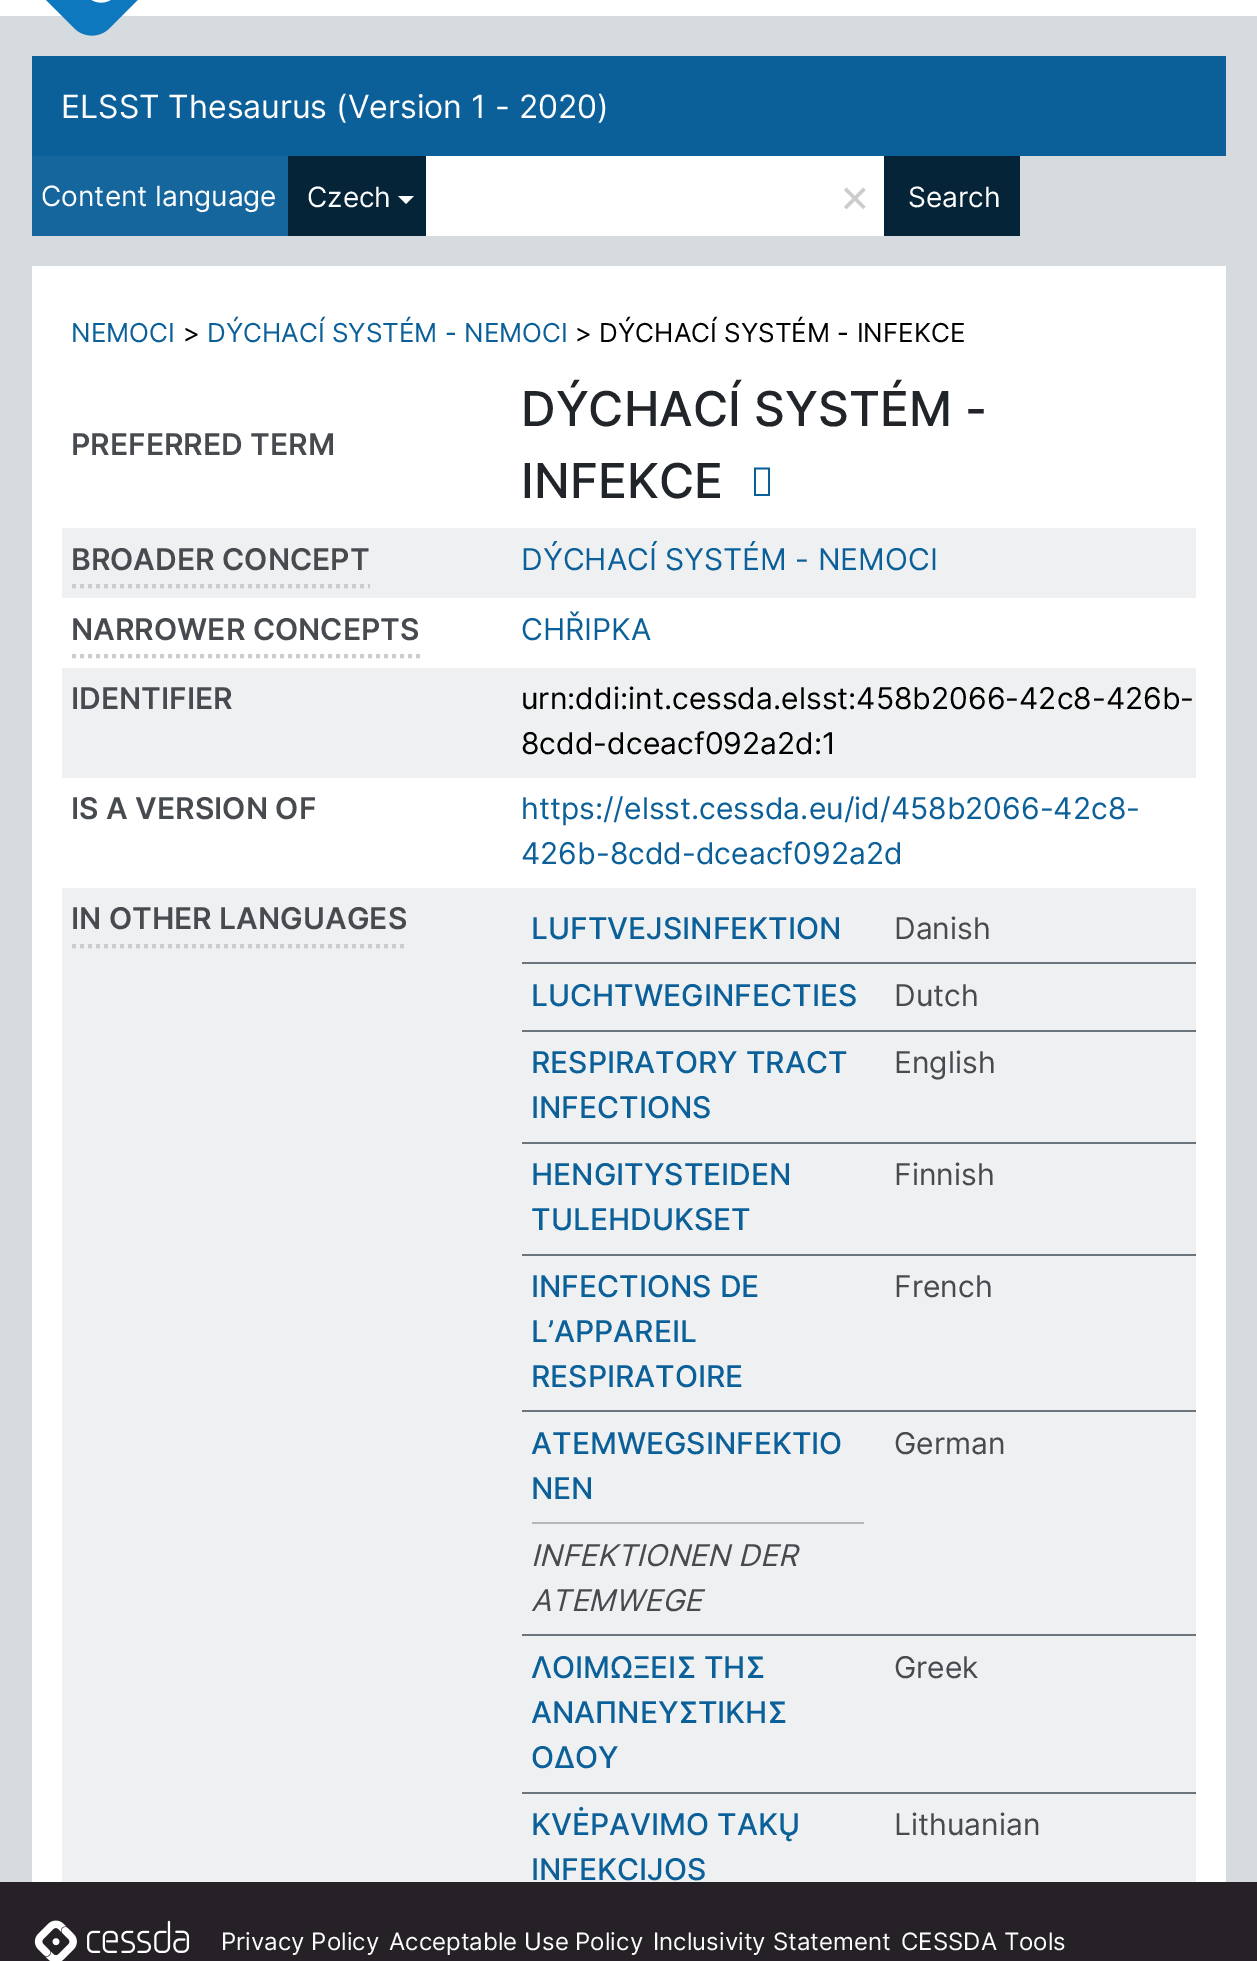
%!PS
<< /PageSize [1257 1961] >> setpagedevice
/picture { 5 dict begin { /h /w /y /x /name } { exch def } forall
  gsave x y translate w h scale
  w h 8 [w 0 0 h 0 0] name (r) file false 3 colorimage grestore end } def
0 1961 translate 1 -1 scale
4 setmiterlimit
0.835 0.859 0.871 setrgbcolor
0 0 1257 1961 rectfill
1 setgray
0 0 1257 16 rectfill
(img1.rgb) 46 0 92 36 picture
0.043 0.376 0.6 setrgbcolor
32 56 1194 100 rectfill
/Inter-Regular [32 0 0 -32 0 0] selectfont
0.992 0.992 0.996 setrgbcolor
61 118 moveto (ELSST Thesaurus \(Version 1 - 2020\)) show
0.082 0.4 0.612 setrgbcolor
32 156 256 80 rectfill
/Inter-Regular [28 0 0 -28 0 0] selectfont
0.992 0.992 0.996 setrgbcolor
41 206 moveto (Content language) show
0.02 0.141 0.22 setrgbcolor
288 156 138 80 rectfill
0.992 0.992 0.996 setrgbcolor
307 207 moveto (Czech) show
1 setgray
newpath 398 196 moveto 414 196 lineto 406 204 lineto closepath fill
426 156 458 80 rectfill
/Inter-Regular [48 0 0 -48 0 0] selectfont
0.8 setgray
839 212 moveto (×) show
0.02 0.141 0.22 setrgbcolor
884 156 136 80 rectfill
/Inter-Regular [28 0 0 -28 0 0] selectfont
0.992 0.992 0.996 setrgbcolor
908 207 moveto (Search) show
1 setgray
32 266 1194 1616 rectfill
/Inter-Regular [26 0 0 -26 0 0] selectfont
0.043 0.376 0.6 setrgbcolor
71 342 moveto (NEMOCI) show
0 setgray
183 342 moveto (>) show
0.043 0.376 0.6 setrgbcolor
207 342 moveto (DÝCHACÍ SYSTÉM - NEMOCI) show
0 setgray
575 342 moveto (> DÝCHACÍ SYSTÉM - INFEKCE) show
/Inter-SemiBold [30 0 0 -30 0 0] selectfont
0.278 0.294 0.31 setrgbcolor
71 455 moveto (PREFERRED TERM) show
/Inter-Medium [48 0 0 -48 0 0] selectfont
0.129 0.145 0.161 setrgbcolor
521 426 moveto (DÝCHACÍ SYSTÉM -) show
521 498 moveto (INFEKCE) show
0.043 0.376 0.6 setrgbcolor
newpath 754 496 moveto 754 467.5 lineto 770 467.5 lineto 770 496 lineto closepath 756 494 moveto 768 494 lineto 768 469.5 lineto 756 469.5 lineto closepath fill
0.937 0.941 0.945 setrgbcolor
62 528 1134 70 rectfill
0.8 setgray
4 setlinewidth
[4 4] 0 setdash
newpath 72 586 moveto 370 586 lineto stroke
/Inter-SemiBold [30 0 0 -30 0 0] selectfont
0.278 0.294 0.31 setrgbcolor
71 570 moveto (BROADER CONCEPT) show
/Inter-Regular [30 0 0 -30 0 0] selectfont
0.043 0.376 0.6 setrgbcolor
521 570 moveto (DÝCHACÍ SYSTÉM - NEMOCI) show
0.8 setgray
newpath 72 656 moveto 420 656 lineto stroke
/Inter-SemiBold [30 0 0 -30 0 0] selectfont
0.278 0.294 0.31 setrgbcolor
71 640 moveto (NARROWER CONCEPTS) show
/Inter-Regular [30 0 0 -30 0 0] selectfont
0.043 0.376 0.6 setrgbcolor
521 640 moveto (CHŘIPKA) show
0.937 0.941 0.945 setrgbcolor
62 668 1134 110 rectfill
/Inter-SemiBold [30 0 0 -30 0 0] selectfont
0.278 0.294 0.31 setrgbcolor
71 709 moveto (IDENTIFIER) show
/Inter-Regular [30 0 0 -30 0 0] selectfont
0 setgray
521 709 moveto (urn:ddi:int.cessda.elsst:458b2066-42c8-426b-) show
521 754 moveto (8cdd-dceacf092a2d:1) show
/Inter-SemiBold [30 0 0 -30 0 0] selectfont
0.278 0.294 0.31 setrgbcolor
71 819 moveto (IS A VERSION OF) show
/Inter-Regular [30 0 0 -30 0 0] selectfont
0.043 0.376 0.6 setrgbcolor
521 819 moveto (https://elsst.cessda.eu/id/458b2066-42c8-) show
521 864 moveto (426b-8cdd-dceacf092a2d) show
0.937 0.941 0.945 setrgbcolor
62 888 1134 994 rectfill
0.8 setgray
newpath 72 946 moveto 408 946 lineto stroke
/Inter-SemiBold [30 0 0 -30 0 0] selectfont
0.278 0.294 0.31 setrgbcolor
71 929 moveto (IN OTHER LANGUAGES) show
/Inter-Medium [30 0 0 -30 0 0] selectfont
0.043 0.376 0.6 setrgbcolor
531 939 moveto (LUFTVEJSINFEKTION) show
/Inter-Regular [30 0 0 -30 0 0] selectfont
0.278 0.294 0.31 setrgbcolor
894 939 moveto (Danish) show
0.424 0.459 0.49 setrgbcolor
522 962 674 2 rectfill
/Inter-Medium [30 0 0 -30 0 0] selectfont
0.043 0.376 0.6 setrgbcolor
531 1006 moveto (LUCHTWEGINFECTIES) show
/Inter-Regular [30 0 0 -30 0 0] selectfont
0.278 0.294 0.31 setrgbcolor
894 1006 moveto (Dutch) show
0.424 0.459 0.49 setrgbcolor
522 1030 674 2 rectfill
/Inter-Medium [30 0 0 -30 0 0] selectfont
0.043 0.376 0.6 setrgbcolor
531 1073 moveto (RESPIRATORY TRACT) show
531 1118 moveto (INFECTIONS) show
/Inter-Regular [30 0 0 -30 0 0] selectfont
0.278 0.294 0.31 setrgbcolor
894 1073 moveto (English) show
0.424 0.459 0.49 setrgbcolor
522 1142 674 2 rectfill
/Inter-Medium [30 0 0 -30 0 0] selectfont
0.043 0.376 0.6 setrgbcolor
531 1185 moveto (HENGITYSTEIDEN) show
531 1230 moveto (TULEHDUKSET) show
/Inter-Regular [30 0 0 -30 0 0] selectfont
0.278 0.294 0.31 setrgbcolor
894 1185 moveto (Finnish) show
0.424 0.459 0.49 setrgbcolor
522 1254 674 2 rectfill
/Inter-Medium [30 0 0 -30 0 0] selectfont
0.043 0.376 0.6 setrgbcolor
531 1297 moveto (INFECTIONS DE) show
531 1342 moveto (L’APPAREIL) show
531 1387 moveto (RESPIRATOIRE) show
/Inter-Regular [30 0 0 -30 0 0] selectfont
0.278 0.294 0.31 setrgbcolor
894 1297 moveto (French) show
0.424 0.459 0.49 setrgbcolor
522 1410 674 2 rectfill
/Inter-Medium [30 0 0 -30 0 0] selectfont
0.043 0.376 0.6 setrgbcolor
531 1454 moveto (ATEMWEGSINFEKTIO) show
531 1499 moveto (NEN) show
/Inter-Regular [30 0 0 -30 0 0] selectfont
0.278 0.294 0.31 setrgbcolor
894 1454 moveto (German) show
0.702 0.722 0.741 setrgbcolor
532 1522 332 2 rectfill
/Inter-Italic [30 0 0 -30 0 0] selectfont
0.278 0.294 0.31 setrgbcolor
531 1566 moveto (INFEKTIONEN DER) show
531 1611 moveto (ATEMWEGE) show
0.424 0.459 0.49 setrgbcolor
522 1634 674 2 rectfill
/Inter-Medium [30 0 0 -30 0 0] selectfont
0.043 0.376 0.6 setrgbcolor
531 1678 moveto (ΛΟΙΜΩΞΕΙΣ ΤΗΣ) show
531 1723 moveto (ΑΝΑΠΝΕΥΣΤΙΚΗΣ) show
531 1768 moveto (ΟΔΟΥ) show
/Inter-Regular [30 0 0 -30 0 0] selectfont
0.278 0.294 0.31 setrgbcolor
894 1678 moveto (Greek) show
0.424 0.459 0.49 setrgbcolor
522 1792 674 2 rectfill
/Inter-Medium [30 0 0 -30 0 0] selectfont
0.043 0.376 0.6 setrgbcolor
531 1835 moveto (KVĖPAVIMO TAKŲ) show
531 1880 moveto (INFEKCIJOS) show
/Inter-Regular [30 0 0 -30 0 0] selectfont
0.278 0.294 0.31 setrgbcolor
894 1835 moveto (Lithuanian) show
0.149 0.129 0.149 setrgbcolor
0 1882 1257 79 rectfill
(img2.rgb) 34 1920 156 41 picture
/Inter-Regular [24 0 0 -24 0 0] selectfont
0.992 0.992 0.996 setrgbcolor
221 1950 moveto (Privacy Policy) show
389 1950 moveto (Acceptable Use Policy) show
653 1950 moveto (Inclusivity Statement) show
901 1950 moveto (CESSDA Tools) show
showpage
